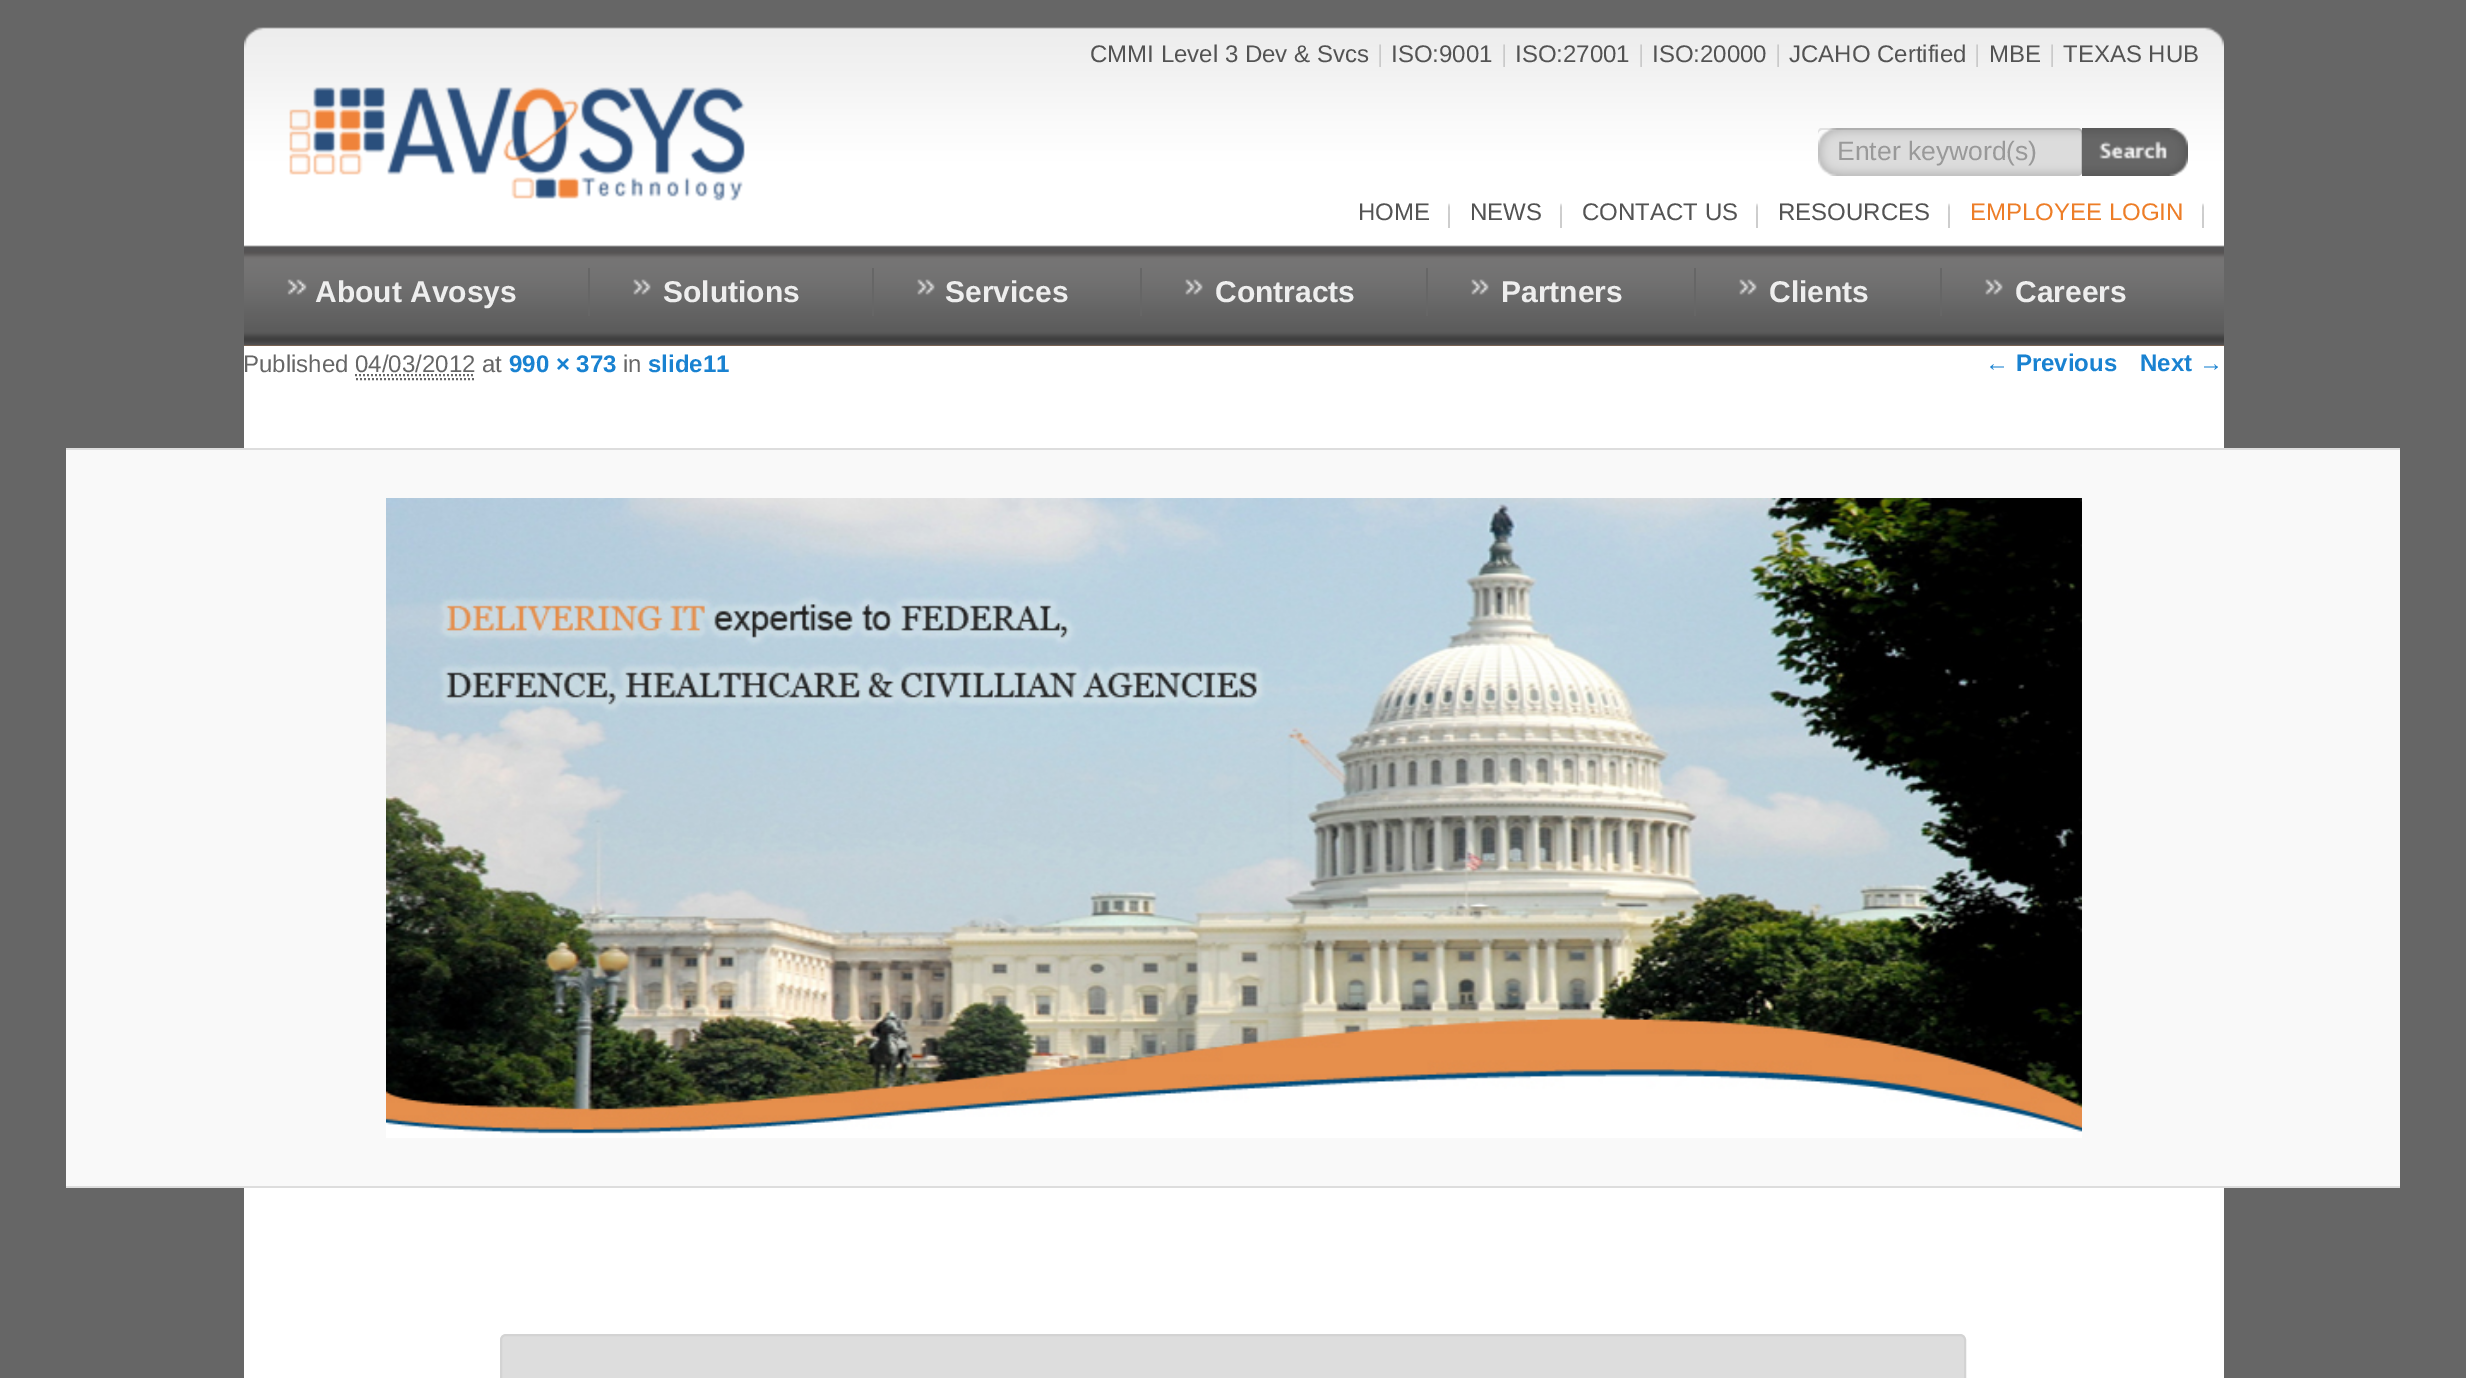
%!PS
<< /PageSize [2466 1378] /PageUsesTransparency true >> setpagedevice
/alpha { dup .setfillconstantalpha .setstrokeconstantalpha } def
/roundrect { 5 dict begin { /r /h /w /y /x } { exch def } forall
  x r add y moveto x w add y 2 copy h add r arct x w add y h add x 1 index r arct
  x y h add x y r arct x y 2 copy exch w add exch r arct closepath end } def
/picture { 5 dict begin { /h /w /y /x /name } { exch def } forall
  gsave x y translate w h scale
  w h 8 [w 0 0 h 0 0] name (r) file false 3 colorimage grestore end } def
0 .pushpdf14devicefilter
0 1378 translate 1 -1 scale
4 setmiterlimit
0.4 setgray
0 0 2466 1378 rectfill
(img1.rgb) 244 10 1980 336 picture
(img2.rgb) 289 87 456 114 picture
/LiberationSans-Regular [24 0 0 -24 0 0] selectfont
0.325 setgray
1090 62 moveto (CMMI Level 3 Dev & Svcs) show
0.792 setgray
1377 62 moveto (|) show
0.325 setgray
1391 62 moveto (ISO:9001) show
0.792 setgray
1501 62 moveto (|) show
0.325 setgray
1515 62 moveto (ISO:27001) show
0.792 setgray
1638 62 moveto (|) show
0.325 setgray
1652 62 moveto (ISO:20000) show
0.792 setgray
1775 62 moveto (|) show
0.325 setgray
1789 62 moveto (JCAHO Certified) show
0.792 setgray
1974 62 moveto (|) show
0.325 setgray
1989 62 moveto (MBE) show
0.792 setgray
2049 62 moveto (|) show
0.325 setgray
2063 62 moveto (TEXAS HUB) show
(img3.rgb) 1818 128 264 48 picture
0.1 alpha
0 setgray
newpath 1822 130 moveto 2078 130 lineto 2080 130 2082 132 2082 134 curveto 2082 131 2082 128 2078 128 curveto 1821 128 lineto 1818 129 1818 131 1818 134 curveto 1818 132 1820 130 1822 130 curveto closepath fill
/LiberationSans-Regular [26.5 0 0 -26.5 0 0] selectfont
1 alpha
0.6 setgray
1837 160 moveto (Enter keyword\(s\)) show
(img4.rgb) 2082 128 106 48 picture
(img5.rgb) 1448 203 2 25 picture
/LiberationSans-Regular [24 0 0 -24 0 0] selectfont
0.325 setgray
1358 220 moveto (HOME) show
(img5.rgb) 1560 203 2 25 picture
1470 220 moveto (NEWS) show
(img5.rgb) 1756 203 2 25 picture
1582 220 moveto (CONTACT US) show
(img5.rgb) 1948 203 2 25 picture
1778 220 moveto (RESOURCES) show
(img5.rgb) 2202 203 2 25 picture
0.929 0.49 0.153 setrgbcolor
1970 220 moveto (EMPLOYEE LOGIN) show
0.4 setgray
588 268 2 48 rectfill
(img6.rgb) 287 279 20 16 picture
/LiberationSans-Bold [30 0 0 -30 0 0] selectfont
0.933 setgray
315 302 moveto (About Avosys) show
0.4 setgray
872 268 2 48 rectfill
(img7.rgb) 633 279 18 16 picture
0.933 setgray
663 302 moveto (Solutions) show
0.4 setgray
1140 268 2 48 rectfill
(img7.rgb) 917 279 18 16 picture
0.933 setgray
945 302 moveto (Services) show
0.4 setgray
1426 268 2 48 rectfill
(img7.rgb) 1185 279 18 16 picture
0.933 setgray
1215 302 moveto (Contracts) show
0.4 setgray
1694 268 2 48 rectfill
(img7.rgb) 1471 279 18 16 picture
0.933 setgray
1501 302 moveto (Partners) show
0.4 setgray
1940 268 2 48 rectfill
(img7.rgb) 1739 279 18 16 picture
0.933 setgray
1769 302 moveto (Clients) show
(img7.rgb) 1985 279 18 16 picture
2015 302 moveto (Careers) show
1 setgray
244 346 1980 1032 rectfill
/LiberationSans-Regular [24 0 0 -24 0 0] selectfont
0.4 setgray
243 372 moveto (Published 04/03/2012 at) show
/LiberationSans-Bold [24 0 0 -24 0 0] selectfont
0.098 0.51 0.82 setrgbcolor
509 372 moveto (990 × 373) show
/LiberationSans-Regular [24 0 0 -24 0 0] selectfont
0.4 setgray
623 372 moveto (in) show
/LiberationSans-Bold [24 0 0 -24 0 0] selectfont
0.098 0.51 0.82 setrgbcolor
648 372 moveto (slide11) show
0.4 setgray
2 setlinewidth
[2 2] 0 setdash
newpath 355 375 moveto 475 375 lineto stroke
newpath 356 379 moveto 476 379 lineto stroke
0.976 setgray
66 450 2334 736 rectfill
0.867 setgray
66 448 2334 2 rectfill
66 1186 2334 2 rectfill
(img8.rgb) 386 498 1696 640 picture
0.098 0.51 0.82 setrgbcolor
1985 371 moveto (← Previous) show
2140 371 moveto (Next →) show
0.867 setgray
501 1335 1464 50 5 roundrect gsave fill grestore
0.827 setgray
[] 0 setdash
stroke
.poppdf14devicefilter showpage
